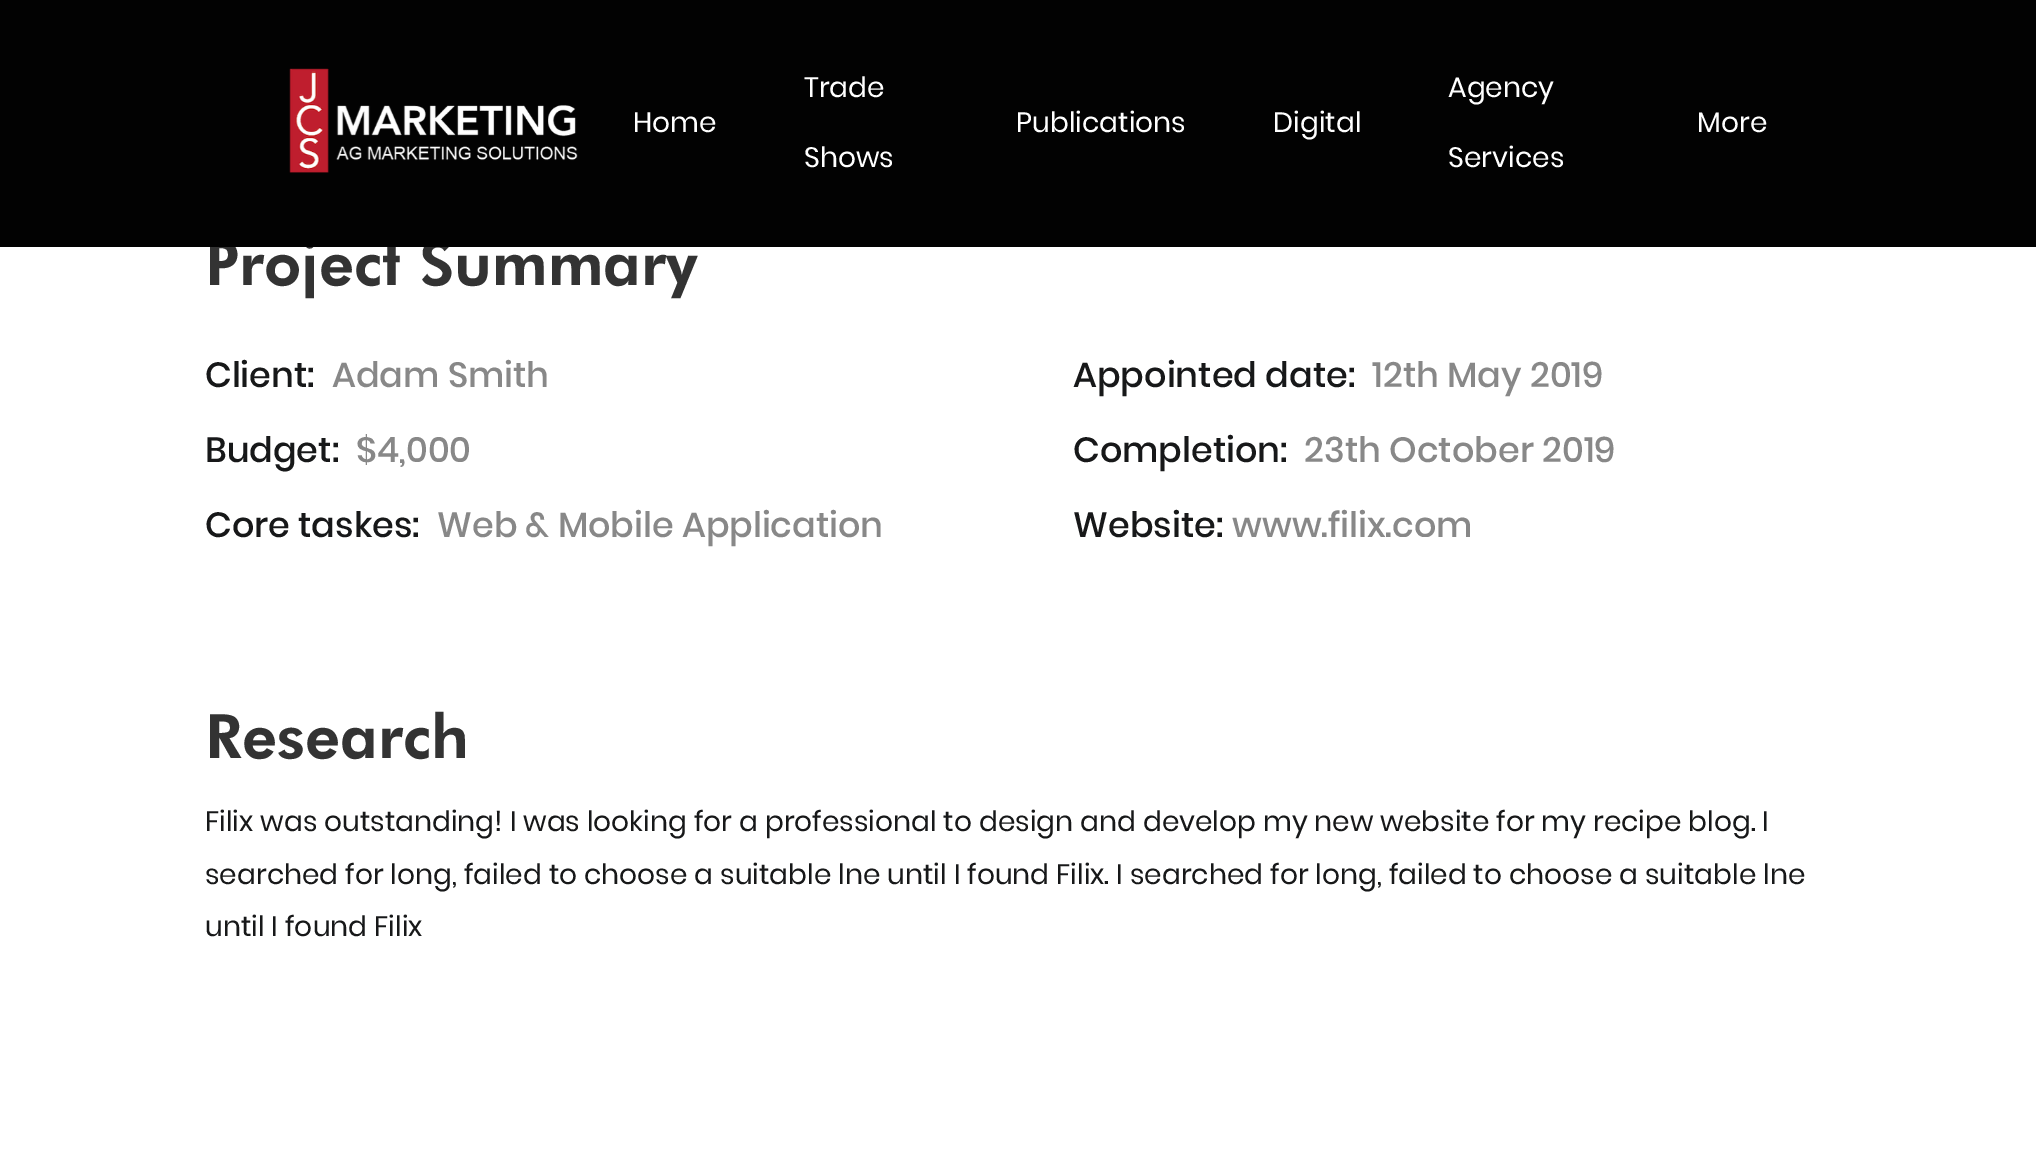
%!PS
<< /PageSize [2036 1176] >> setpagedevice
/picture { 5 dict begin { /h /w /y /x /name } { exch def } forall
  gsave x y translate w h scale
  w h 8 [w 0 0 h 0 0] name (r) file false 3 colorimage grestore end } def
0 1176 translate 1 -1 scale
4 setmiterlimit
1 setgray
0 0 2036 1176 rectfill
/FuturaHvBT-Black [61.25 0 0 -61.25 0 0] selectfont
0.2 setgray
205 285 moveto (Project Summary) show
0.008 setgray
0 0 2036 247 rectfill
(img1.rgb) 289 68 289 105 picture
/Poppins-Regular [28 0 0 -28 0 0] selectfont
1 setgray
633 132 moveto (Home) show
804 97 moveto (Trade) show
804 167 moveto (Shows) show
1016 132 moveto (Publications) show
1273 132 moveto (Digital) show
1448 97 moveto (Agency) show
1448 167 moveto (Services) show
1697 132 moveto (More) show
/Poppins-Medium [35 0 0 -35 0 0] selectfont
0.09 0.094 0.098 setrgbcolor
205 387 moveto (Client:) show
0.533 setgray
332 387 moveto (Adam Smith) show
0.09 0.094 0.098 setrgbcolor
205 462 moveto (Budget:) show
0.533 setgray
356 462 moveto ($4,000) show
0.09 0.094 0.098 setrgbcolor
205 537 moveto (Core taskes:) show
0.533 setgray
437 537 moveto (Web & Mobile Application) show
0.09 0.094 0.098 setrgbcolor
1073 387 moveto (Appointed date:) show
0.533 setgray
1372 387 moveto (12th May 2019) show
0.09 0.094 0.098 setrgbcolor
1073 462 moveto (Completion:) show
0.533 setgray
1304 462 moveto (23th October 2019) show
0.09 0.094 0.098 setrgbcolor
1073 537 moveto (Website:) show
gsave
1232 501 263 36 rectclip
0.533 setgray
1232 537 moveto (www.filix.com) show
grestore
/FuturaHvBT-Black [61.25 0 0 -61.25 0 0] selectfont
0.2 setgray
205 758 moveto (Research) show
/Poppins-Regular [28 0 0 -28 0 0] selectfont
0.09 0.094 0.098 setrgbcolor
205 831 moveto (Filix was outstanding! I was looking for a professional to design and develop my new website for my recipe blog. I) show
205 884 moveto (searched for long, failed to choose a suitable lne until I found Filix. I searched for long, failed to choose a suitable lne) show
205 936 moveto (until I found Filix) show
showpage
